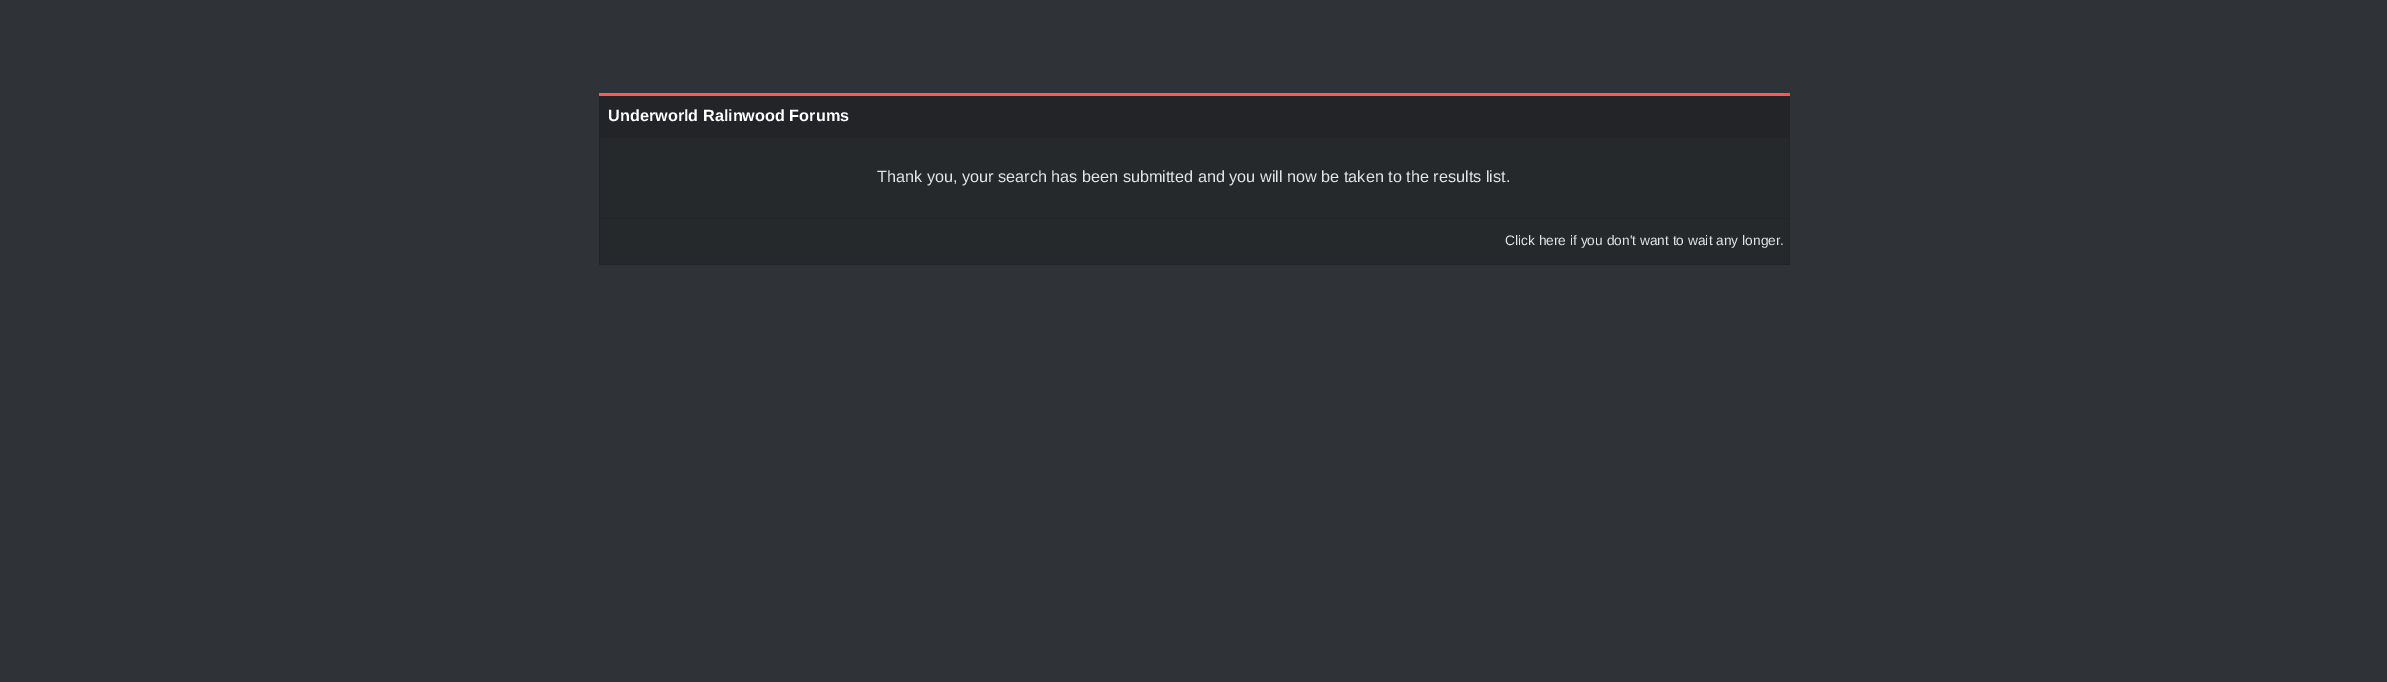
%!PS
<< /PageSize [2387 682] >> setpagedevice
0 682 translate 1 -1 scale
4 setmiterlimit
0.184 0.196 0.212 setrgbcolor
0 0 2387 682 rectfill
0.133 0.141 0.153 setrgbcolor
599 96 1191 42 rectfill
1 0.345 0.341 setrgbcolor
599 93 1191 3 rectfill
/LiberationSans-Bold [16.25 0 0 -16.25 0 0] selectfont
1 setgray
608 121 moveto (Underworld Ralinwood Forums) show
0.149 0.161 0.173 setrgbcolor
600 138 1189 80 rectfill
0.133 0.141 0.153 setrgbcolor
1789 138 1 127 rectfill
599 218 1191 1 rectfill
599 138 1 81 rectfill
/LiberationSans-Regular [16.25 0 0 -16.25 0 0] selectfont
0.894 setgray
877 182 moveto (Thank you, your search has been submitted and you will now be taken to the results list.) show
0.149 0.161 0.173 setrgbcolor
600 219 1189 45 rectfill
0.133 0.141 0.153 setrgbcolor
599 264 1191 1 rectfill
599 219 1 46 rectfill
/LiberationSans-Regular [13.75 0 0 -13.75 0 0] selectfont
0.894 setgray
1505 245 moveto (Click here if you don't want to wait any longer.) show
showpage
